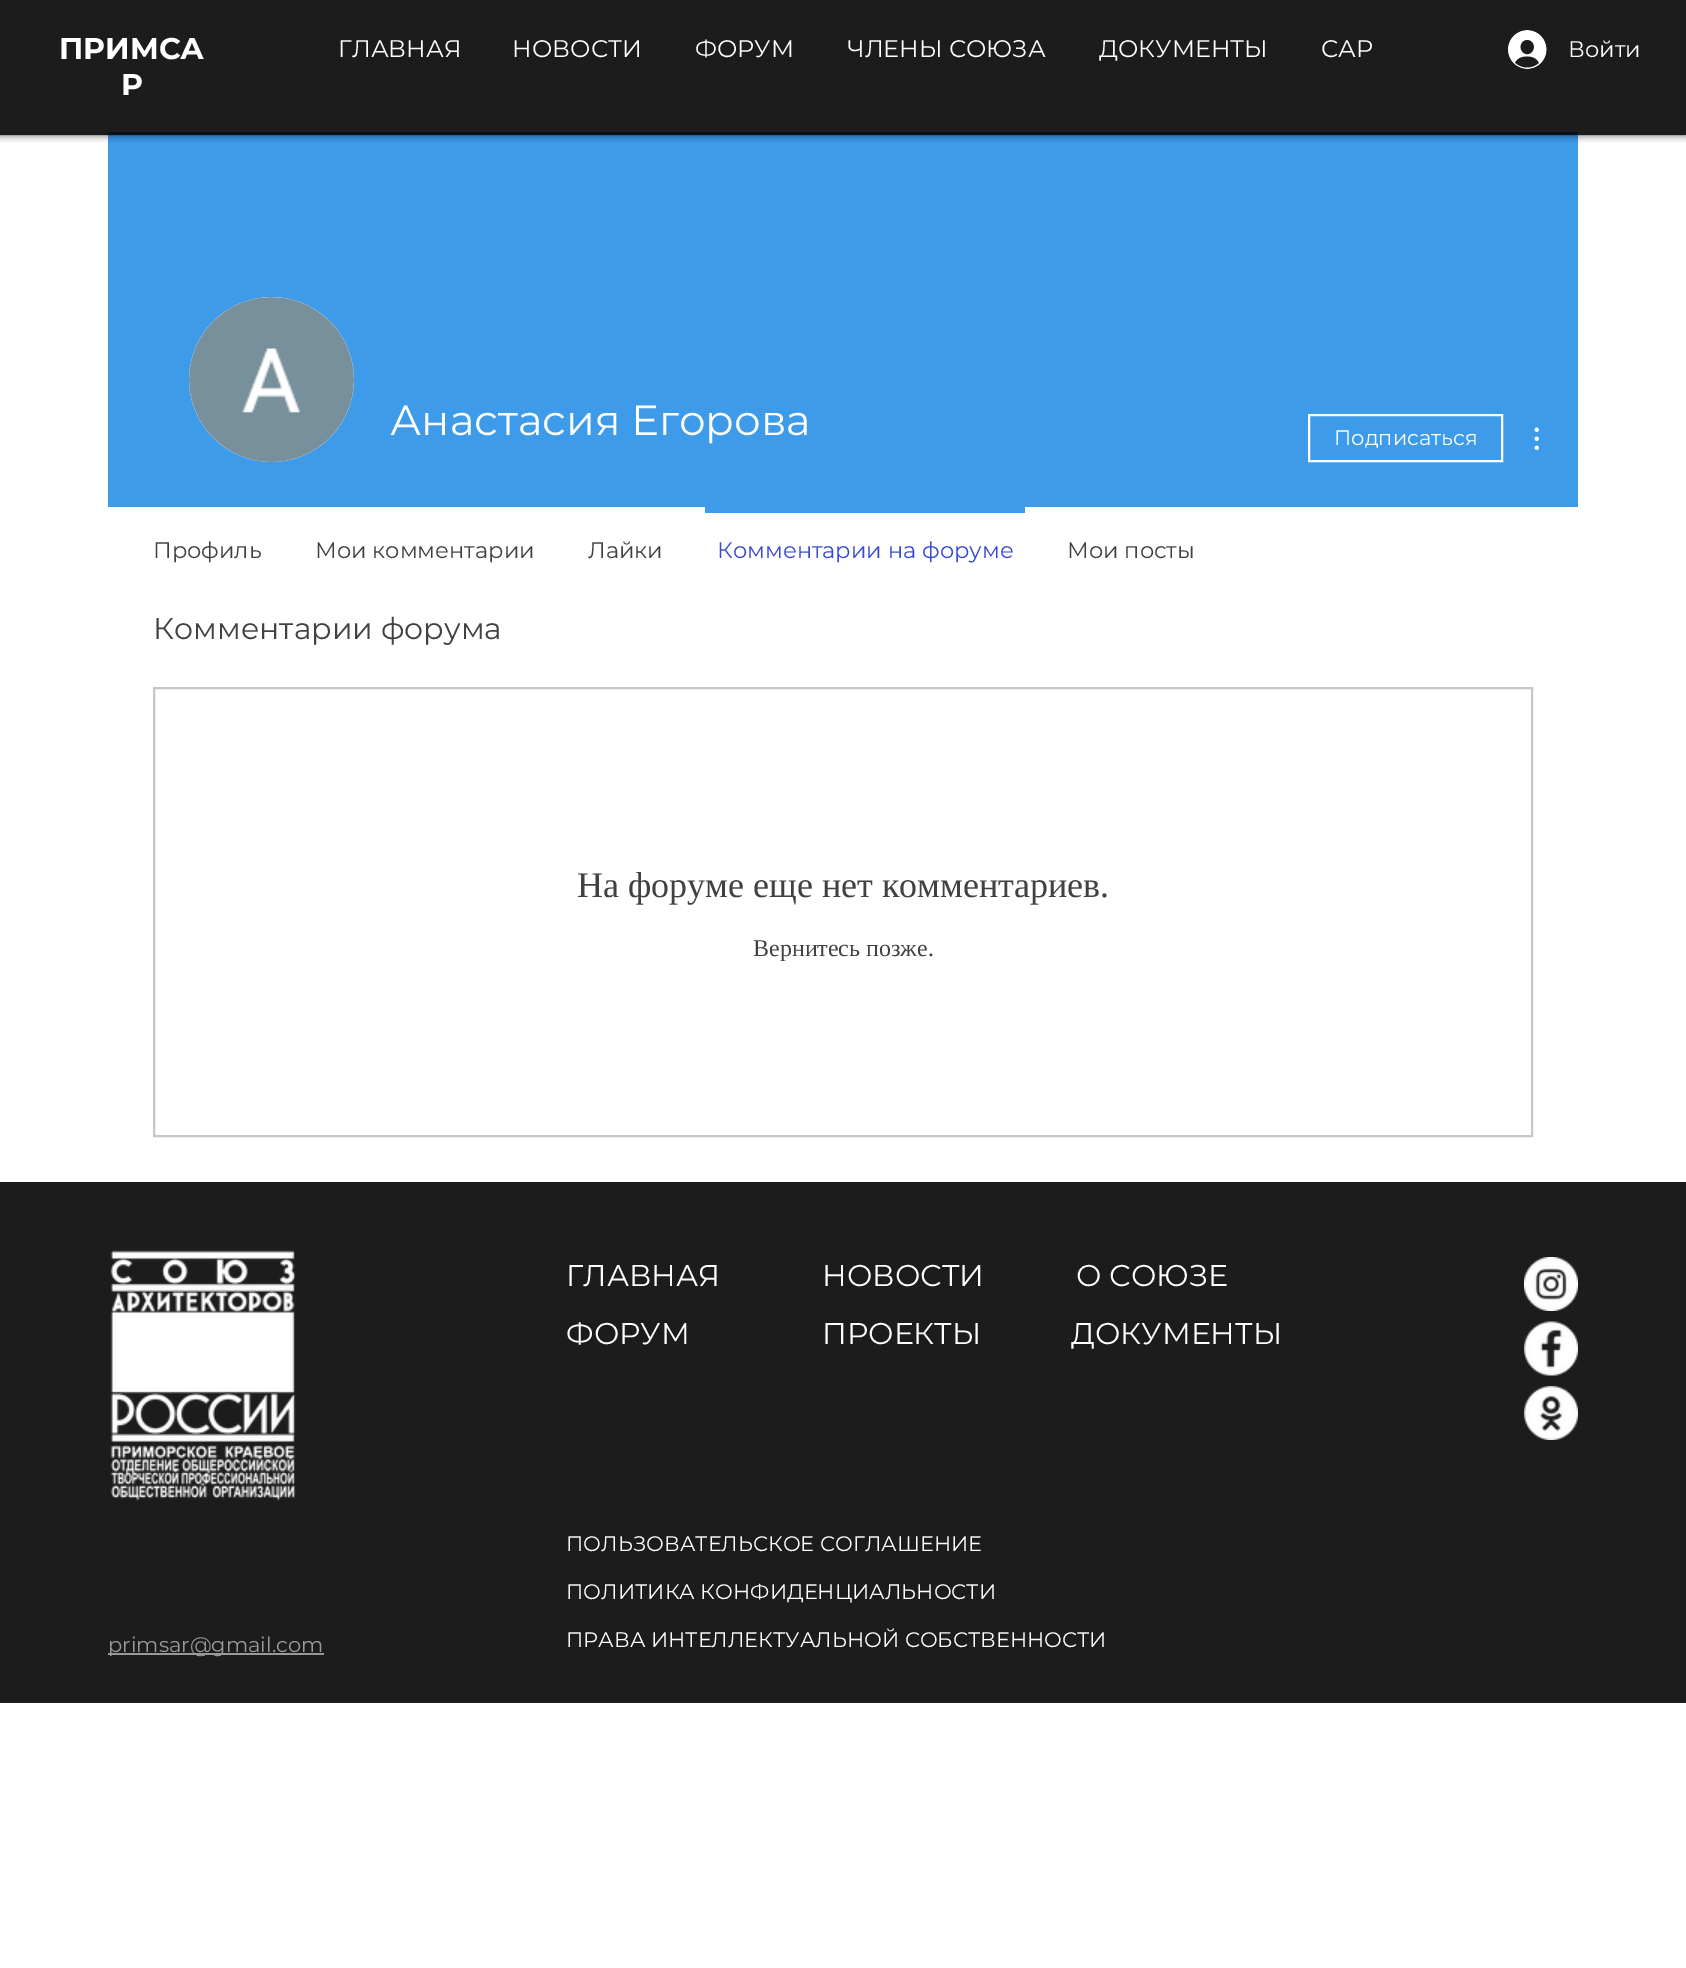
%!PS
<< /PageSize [1686 1968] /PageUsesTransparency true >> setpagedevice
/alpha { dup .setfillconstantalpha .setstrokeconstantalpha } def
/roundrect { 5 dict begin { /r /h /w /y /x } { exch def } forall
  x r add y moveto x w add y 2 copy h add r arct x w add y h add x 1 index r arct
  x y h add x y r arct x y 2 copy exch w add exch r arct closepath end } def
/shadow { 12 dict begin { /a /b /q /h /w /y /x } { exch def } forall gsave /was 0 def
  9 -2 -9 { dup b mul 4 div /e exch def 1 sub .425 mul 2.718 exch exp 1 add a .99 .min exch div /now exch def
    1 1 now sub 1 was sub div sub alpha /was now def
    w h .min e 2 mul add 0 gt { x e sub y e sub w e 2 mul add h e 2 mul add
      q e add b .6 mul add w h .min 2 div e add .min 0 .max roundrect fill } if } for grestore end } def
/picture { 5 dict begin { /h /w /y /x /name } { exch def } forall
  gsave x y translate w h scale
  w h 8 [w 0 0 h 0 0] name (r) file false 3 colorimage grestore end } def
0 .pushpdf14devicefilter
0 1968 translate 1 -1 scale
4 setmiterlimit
1 setgray
0 0 1686 1968 rectfill
0.11 setgray
0 0 1686 135 rectfill
0.239 0.608 0.914 setrgbcolor
108 135 1470 372 rectfill
0.027 0.067 0.102 setrgbcolor
108 132 1470 3 rectfill
gsave
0 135 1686 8 rectclip
0 setgray
0 0 1686 135 0 4 0.7 shadow
grestore
/Montserrat-Bold [30 0 0 -30 0 0] selectfont
1 setgray
59 59 moveto (ПРИМСА) show
121 95 moveto (Р) show
/Montserrat-Regular [24 0 0 -24 0 0] selectfont
338 57 moveto (ГЛАВНАЯ) show
512 57 moveto (НОВОСТИ) show
695 57 moveto (ФОРУМ) show
847 57 moveto (ЧЛЕНЫ СОЮЗА) show
1099 57 moveto (ДОКУМЕНТЫ) show
1321 57 moveto (САР) show
(img1.rgb) 1508 30 39 39 picture
/Montserrat-Regular [22.5 0 0 -22.5 0 0] selectfont
1568 57 moveto (Войти) show
0.847 setgray
newpath 271.5 379.5 82.5 0 360 arc closepath fill
(img2.rgb) 189 297 165 165 picture
/Montserrat-Regular [42 0 0 -42 0 0] selectfont
1 setgray
390 435 moveto (Анастасия Егорова) show
2 setlinewidth
1309 415 193 46 rectstroke
/Montserrat-Regular [21 0 0 -21 0 0] selectfont
1334 445 moveto (Подписаться) show
(img3.rgb) 1534 427 5 23 picture
/Montserrat-Regular [22.5 0 0 -22.5 0 0] selectfont
0.255 setgray
153 558 moveto (Профиль) show
315 558 moveto (Мои комментарии) show
588 558 moveto (Лайки) show
0.239 0.608 0.914 setrgbcolor
705 507 320 6 rectfill
0.22 0.29 0.827 setrgbcolor
717 558 moveto (Комментарии на форуме) show
0.255 setgray
1067 558 moveto (Мои посты) show
/Montserrat-Regular [30 0 0 -30 0 0] selectfont
153 639 moveto (Комментарии форума) show
0.776 setgray
154 688 1378 448 rectstroke
/LiberationSerif-Regular [36 0 0 -36 0 0] selectfont
0.255 setgray
577 897 moveto (На форуме еще нет комментариев.) show
/LiberationSerif-Regular [24 0 0 -24 0 0] selectfont
753 956 moveto (Вернитесь позже.) show
0.11 setgray
0 1182 1686 521 rectfill
(img4.rgb) 110 1250 186 251 picture
/Montserrat-Regular [30 0 0 -30 0 0] selectfont
1 setgray
566 1286 moveto (ГЛАВНАЯ) show
822 1286 moveto (НОВОСТИ) show
1076 1286 moveto (О СОЮЗЕ) show
566 1344 moveto (ФОРУМ) show
822 1344 moveto (ПРОЕКТЫ) show
(img5.rgb) 1524 1257 54 54 picture
(img6.rgb) 1524 1321 54 55 picture
(img7.rgb) 1524 1386 54 54 picture
1071 1344 moveto (ДОКУМЕНТЫ) show
0.6 0.6 0.592 setrgbcolor
108 1653 216 2 rectfill
/Montserrat-Regular [21 0 0 -21 0 0] selectfont
108 1652 moveto (primsar@gmail.com) show
1 setgray
566 1551 moveto (ПОЛЬЗОВАТЕЛЬСКОЕ СОГЛАШЕНИЕ) show
566 1599 moveto (ПОЛИТИКА КОНФИДЕНЦИАЛЬНОСТИ) show
566 1647 moveto (ПРАВА ИНТЕЛЛЕКТУАЛЬНОЙ СОБСТВЕННОСТИ) show
.poppdf14devicefilter showpage
